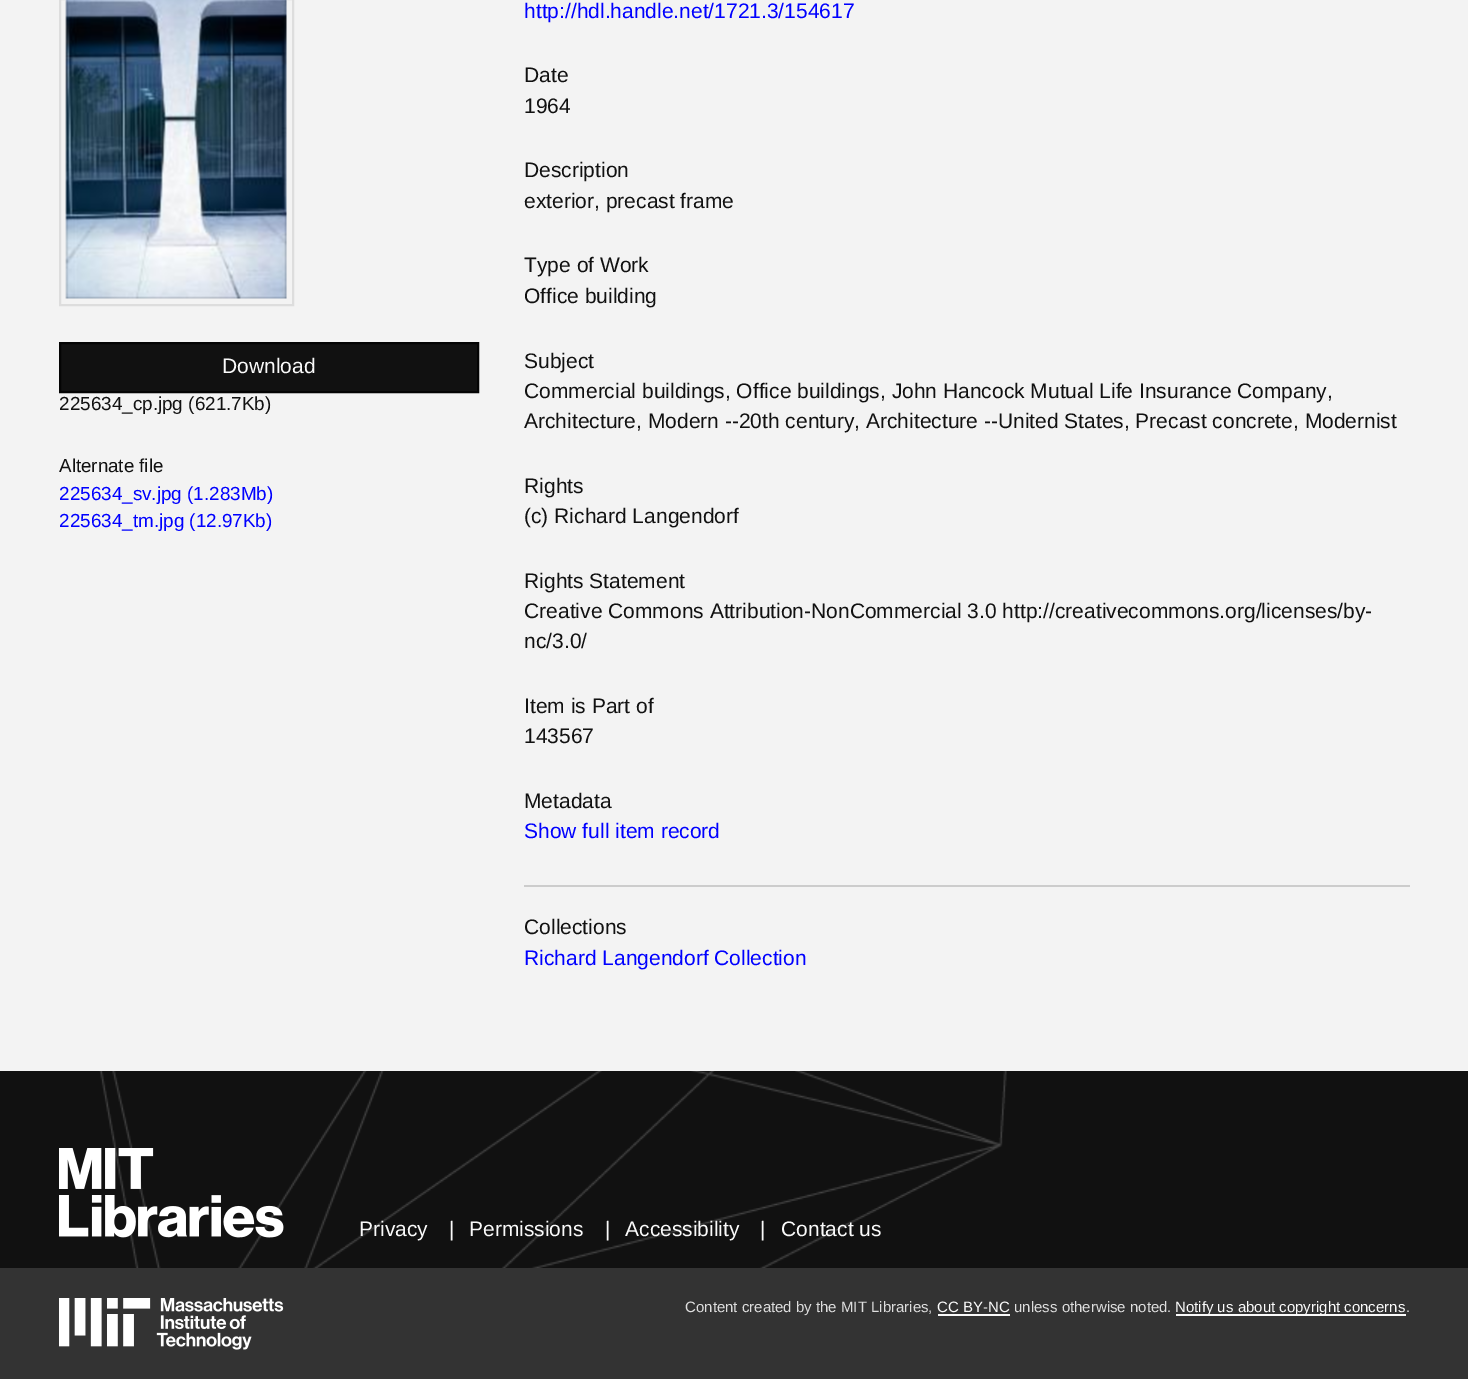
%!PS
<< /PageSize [1468 1379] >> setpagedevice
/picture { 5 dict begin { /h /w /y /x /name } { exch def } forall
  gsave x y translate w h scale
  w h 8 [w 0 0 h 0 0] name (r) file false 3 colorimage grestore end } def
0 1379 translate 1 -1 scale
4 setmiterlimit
0.953 setgray
0 0 1468 1379 rectfill
0.867 setgray
2 setlinewidth
60 -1 233 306 rectstroke
(img1.rgb) 65 0 222 299 picture
0.067 setgray
newpath 60 343 moveto 478 343 lineto 478 392 lineto 60 392 lineto closepath gsave fill grestore
0.016 setgray
stroke
/LiberationSans-Regular [21 0 0 -21 0 0] selectfont
0.98 setgray
222 373 moveto (Download) show
/LiberationSans-Regular [18.9 0 0 -18.9 0 0] selectfont
0.067 setgray
59 410 moveto (225634_cp.jpg \(621.7Kb\)) show
/LiberationSans-Regular [18.75 0 0 -18.75 0 0] selectfont
59 472 moveto (Alternate file) show
/LiberationSans-Regular [18.9 0 0 -18.9 0 0] selectfont
0 0 1 setrgbcolor
59 500 moveto (225634_sv.jpg \(1.283Mb\)) show
59 527 moveto (225634_tm.jpg \(12.97Kb\)) show
/LiberationSans-Regular [21 0 0 -21 0 0] selectfont
524 18 moveto (http://hdl.handle.net/1721.3/154617) show
0.067 setgray
524 82 moveto (Date) show
524 113 moveto (1964) show
524 177 moveto (Description) show
524 208 moveto (exterior, precast frame) show
524 272 moveto (Type of Work) show
524 303 moveto (Office building) show
524 368 moveto (Subject) show
524 398 moveto (Commercial buildings, Office buildings, John Hancock Mutual Life Insurance Company,) show
524 428 moveto (Architecture, Modern --20th century, Architecture --United States, Precast concrete, Modernist) show
524 493 moveto (Rights) show
524 523 moveto (\(c\) Richard Langendorf) show
524 588 moveto (Rights Statement) show
524 618 moveto (Creative Commons Attribution-NonCommercial 3.0 http://creativecommons.org/licenses/by-) show
524 648 moveto (nc/3.0/) show
524 713 moveto (Item is Part of) show
524 743 moveto (143567) show
524 808 moveto (Metadata) show
0 0 1 setrgbcolor
524 838 moveto (Show full item record) show
0.8 setgray
524 885 886 2 rectfill
0.067 setgray
524 934 moveto (Collections) show
0 0 1 setrgbcolor
524 965 moveto (Richard Langendorf Collection) show
0.067 setgray
0 1071 1468 197 rectfill
(img2.rgb) 99 1071 908 197 picture
(img3.rgb) 59 1148 225 90 picture
0.98 setgray
359 1236 moveto (Privacy) show
449 1236 moveto (|) show
469 1236 moveto (Permissions) show
605 1236 moveto (|) show
625 1236 moveto (Accessibility) show
760 1236 moveto (|) show
781 1236 moveto (Contact us) show
0.2 setgray
0 1268 1468 111 rectfill
(img4.rgb) 59 1298 225 52 picture
/LiberationSans-Regular [15 0 0 -15 0 0] selectfont
0.871 setgray
685 1312 moveto (Content created by the MIT Libraries,) show
0.98 setgray
937 1312 moveto (CC BY-NC) show
938 1314 72 2 rectfill
0.871 setgray
1014 1312 moveto (unless otherwise noted.) show
0.98 setgray
1176 1314 230 2 rectfill
1175 1312 moveto (Notify us about copyright concerns) show
0.871 setgray
1406 1312 moveto (.) show
showpage
